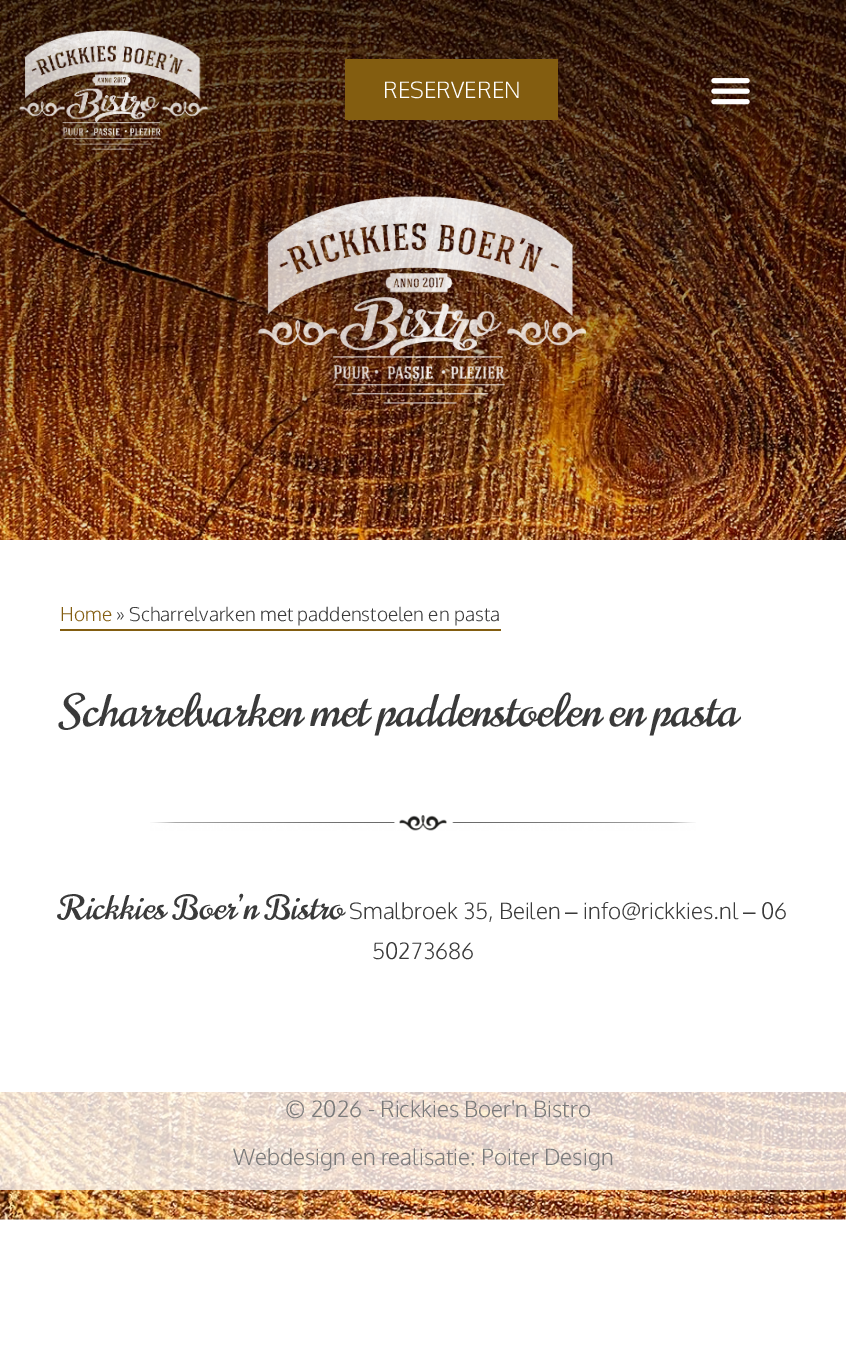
%!PS
<< /PageSize [846 1358] /PageUsesTransparency true >> setpagedevice
/alpha { dup .setfillconstantalpha .setstrokeconstantalpha } def
/picture { 5 dict begin { /h /w /y /x /name } { exch def } forall
  gsave x y translate w h scale
  w h 8 [w 0 0 h 0 0] name (r) file false 3 colorimage grestore end } def
0 .pushpdf14devicefilter
0 1358 translate 1 -1 scale
4 setmiterlimit
1 setgray
0 0 846 1358 rectfill
(img1.rgb) 0 0 846 1220 picture
(img2.rgb) 19 30 189 120 picture
0.514 0.365 0.063 setrgbcolor
345 59 213 61 rectfill
/Oxygen-Light [22.5 0 0 -22.5 0 0] selectfont
1 setgray
383 98 moveto (RESERVEREN) show
0.05 alpha
0 setgray
699 59 63 63 rectfill
1 alpha
(img3.rgb) 711 78 39 27 picture
(img4.rgb) 258 196 328 208 picture
1 setgray
0 540 846 552 rectfill
0.514 0.365 0.063 setrgbcolor
60 629 441 2 rectfill
/Oxygen-Light [19.1 0 0 -19.1 0 0] selectfont
60 621 moveto (Home) show
0.227 setgray
116 621 moveto (» Scharrelvarken met paddenstoelen en pasta) show
/Norican-Regular [45 0 0 -45 0 0] selectfont
60 726 moveto (Scharrelvarken met paddenstoelen en pasta) show
(img5.rgb) 150 815 546 16 picture
/Norican-Regular [33.75 0 0 -33.75 0 0] selectfont
59 919 moveto (Rickkies Boer’n Bistro) show
/Oxygen-Light [22.5 0 0 -22.5 0 0] selectfont
349 919 moveto (Smalbroek 35, Beilen) show
/LiberationSans-Regular [22.5 0 0 -22.5 0 0] selectfont
565 919 moveto (–) show
/Oxygen-Light [22.5 0 0 -22.5 0 0] selectfont
583 919 moveto (info@rickkies.nl) show
/LiberationSans-Regular [22.5 0 0 -22.5 0 0] selectfont
743 919 moveto (–) show
/Oxygen-Light [22.5 0 0 -22.5 0 0] selectfont
761 919 moveto (06) show
372 959 moveto (50273686) show
0.77 alpha
1 setgray
0 1092 846 35 rectfill
1 alpha
0.478 setgray
285 1117 moveto (© 2026 - Rickkies Boer'n Bistro) show
0.77 alpha
1 setgray
0 1127 846 63 rectfill
1 alpha
0.478 setgray
233 1165 moveto (Webdesign en realisatie: Poiter Design) show
.poppdf14devicefilter showpage
